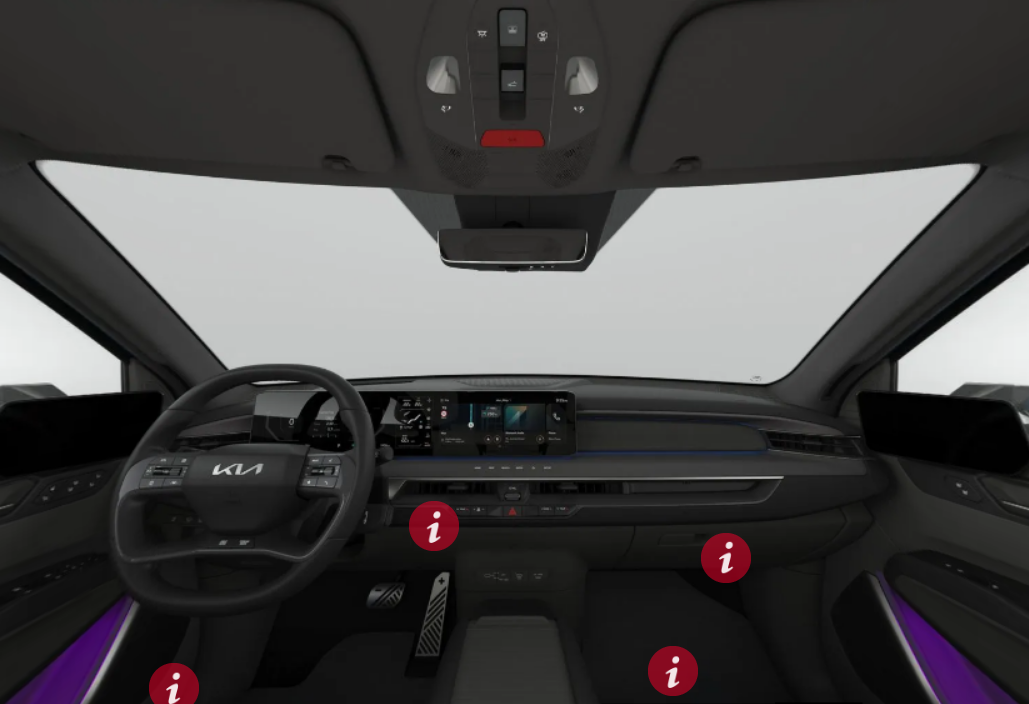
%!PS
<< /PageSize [1029 704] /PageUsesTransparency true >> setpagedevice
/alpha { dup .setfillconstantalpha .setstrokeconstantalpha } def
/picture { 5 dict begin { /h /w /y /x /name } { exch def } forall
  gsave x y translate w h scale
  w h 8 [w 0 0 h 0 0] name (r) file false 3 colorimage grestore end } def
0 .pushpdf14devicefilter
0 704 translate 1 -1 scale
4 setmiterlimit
0 setgray
0 0 1029 704 rectfill
(img1.rgb) 0 0 1029 704 picture
0.54 alpha
0.918 0 0.161 setrgbcolor
newpath 434 526 25 0 360 arc closepath fill
1 alpha
(img2.rgb) 426 511 15 32 picture
0.54 alpha
newpath 726 558 25 0 360 arc closepath fill
1 alpha
(img3.rgb) 719 541 15 33 picture
0.54 alpha
newpath 174 688 25 0 360 arc closepath fill
1 alpha
(img4.rgb) 166 672 15 32 picture
0.54 alpha
newpath 673 671 25 0 360 arc closepath fill
1 alpha
(img5.rgb) 665 656 15 32 picture
.poppdf14devicefilter showpage
